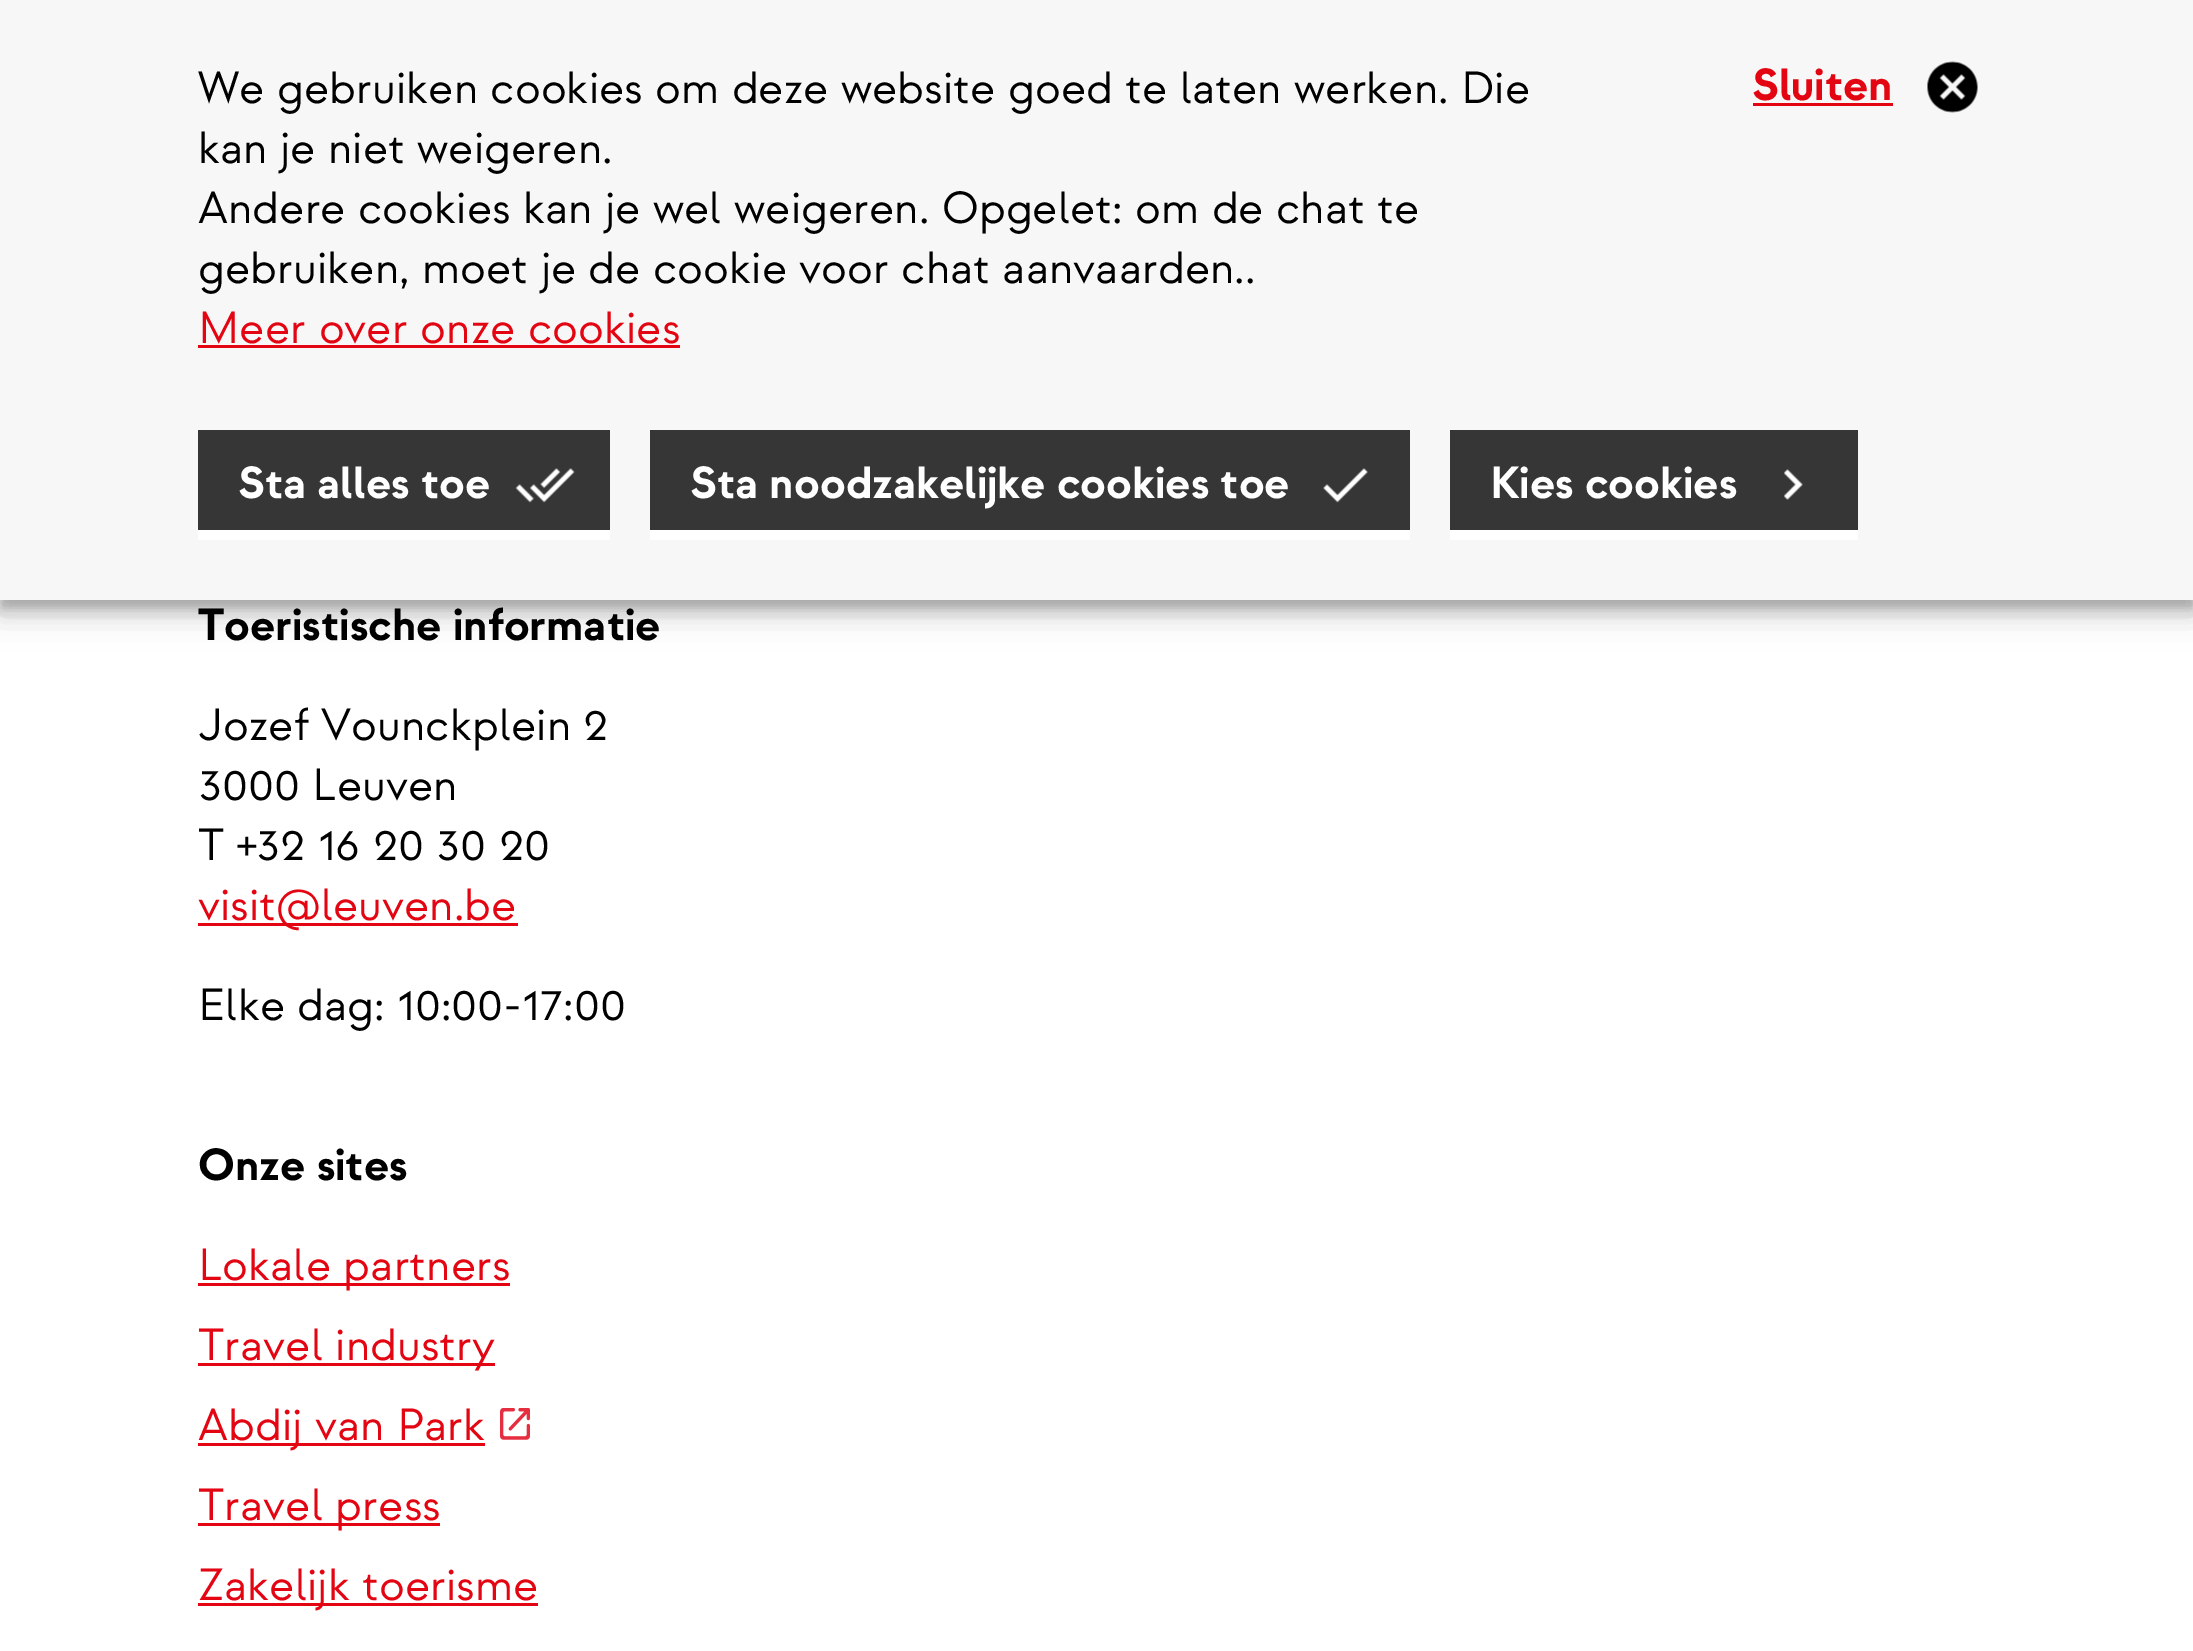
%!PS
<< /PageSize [2193 1651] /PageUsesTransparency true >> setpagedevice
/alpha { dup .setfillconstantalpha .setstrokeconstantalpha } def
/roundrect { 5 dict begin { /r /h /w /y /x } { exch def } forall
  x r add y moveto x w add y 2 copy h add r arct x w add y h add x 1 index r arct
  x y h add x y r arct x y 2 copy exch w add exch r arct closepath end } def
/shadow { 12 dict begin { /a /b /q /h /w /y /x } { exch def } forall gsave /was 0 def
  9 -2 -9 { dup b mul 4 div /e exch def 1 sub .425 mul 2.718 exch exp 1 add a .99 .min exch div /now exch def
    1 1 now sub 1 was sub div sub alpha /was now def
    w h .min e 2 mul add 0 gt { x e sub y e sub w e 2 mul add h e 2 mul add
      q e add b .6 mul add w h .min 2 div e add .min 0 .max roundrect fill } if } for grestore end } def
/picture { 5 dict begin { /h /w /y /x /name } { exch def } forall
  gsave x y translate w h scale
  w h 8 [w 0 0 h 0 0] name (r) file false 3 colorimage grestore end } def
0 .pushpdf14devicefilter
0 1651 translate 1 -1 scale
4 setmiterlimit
1 setgray
0 0 2193 1651 rectfill
0 setgray
0 15 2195 600 0 12.5 0.14 shadow
0 3 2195 600 0 22.5 0.12 shadow
0 8 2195 600 0 6 0.2 shadow
0.969 setgray
0 0 2193 600 rectfill
/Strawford-Regular [45 0 0 -45 0 0] selectfont
0 setgray
198 103 moveto (We gebruiken cookies om deze website goed te laten werken. Die) show
198 163 moveto (kan je niet weigeren.) show
198 223 moveto (Andere cookies kan je wel weigeren. Opgelet: om de chat te) show
198 283 moveto (gebruiken, moet je de cookie voor chat aanvaarden..) show
0.89 0.02 0.071 setrgbcolor
198 343 moveto (Meer over onze cookies) show
198 345 482 3 rectfill
/Strawford-Bold [45 0 0 -45 0 0] selectfont
1752 100 moveto (Sluiten) show
1753 103 140 3 rectfill
(img1.rgb) 1927 61 51 52 picture
0.212 setgray
198 430 412 100 rectfill
1 setgray
198 530 412 10 rectfill
238 498 moveto (Sta alles toe) show
(img2.rgb) 515 468 60 35 picture
0.212 setgray
650 430 760 100 rectfill
1 setgray
650 530 760 10 rectfill
690 498 moveto (Sta noodzakelijke cookies toe) show
(img3.rgb) 1323 468 45 35 picture
0.212 setgray
1450 430 408 100 rectfill
1 setgray
1450 530 408 10 rectfill
1490 498 moveto (Kies cookies) show
(img4.rgb) 1784 469 19 31 picture
0 setgray
198 640 moveto (Toeristische informatie) show
/Strawford-Regular [45 0 0 -45 0 0] selectfont
198 740 moveto (Jozef Vounckplein 2) show
198 800 moveto (3000 Leuven) show
198 860 moveto (T +32 16 20 30 20) show
0.89 0.02 0.071 setrgbcolor
198 923 320 3 rectfill
198 920 moveto (visit@leuven.be) show
0 setgray
198 1020 moveto (Elke dag: 10:00-17:00) show
/Strawford-Bold [45 0 0 -45 0 0] selectfont
198 1180 moveto (Onze sites) show
0.89 0.02 0.071 setrgbcolor
198 1283 312 3 rectfill
/Strawford-Regular [45 0 0 -45 0 0] selectfont
198 1280 moveto (Lokale partners) show
198 1363 297 3 rectfill
198 1360 moveto (Travel industry) show
198 1443 287 3 rectfill
198 1440 moveto (Abdij van Park) show
(img5.rgb) 500 1408 30 32 picture
198 1523 242 3 rectfill
198 1520 moveto (Travel press) show
198 1603 340 3 rectfill
198 1600 moveto (Zakelijk toerisme) show
.poppdf14devicefilter showpage
